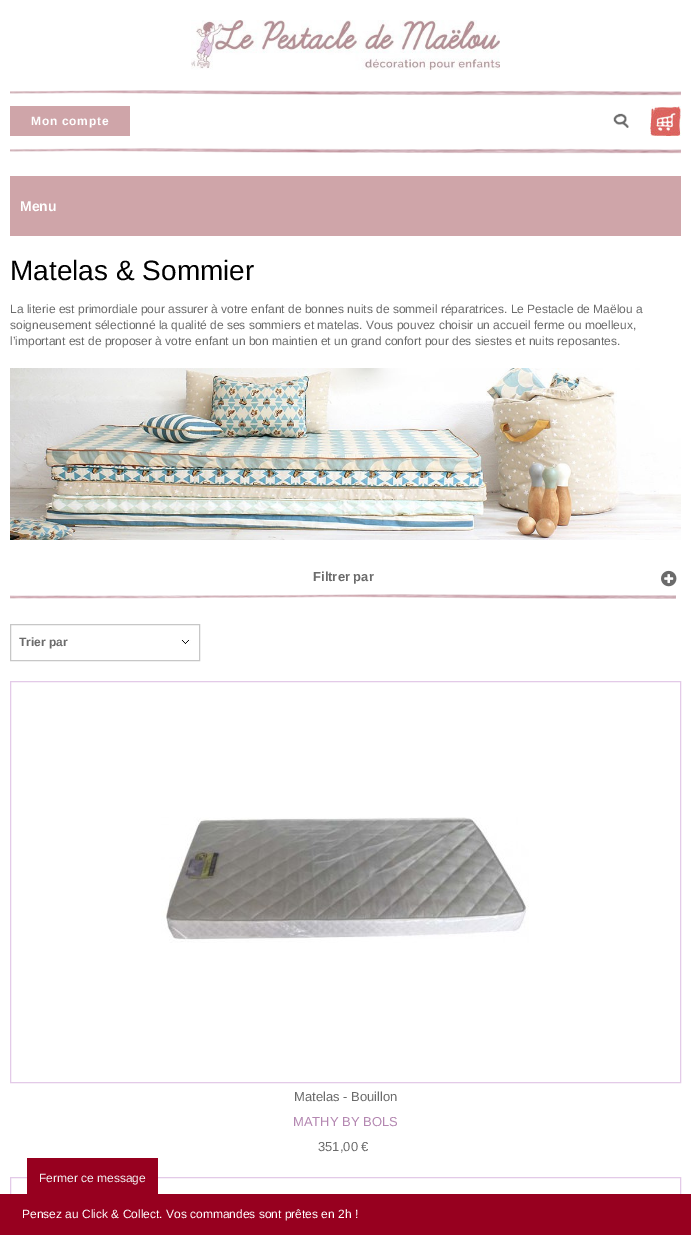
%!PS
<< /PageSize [691 1235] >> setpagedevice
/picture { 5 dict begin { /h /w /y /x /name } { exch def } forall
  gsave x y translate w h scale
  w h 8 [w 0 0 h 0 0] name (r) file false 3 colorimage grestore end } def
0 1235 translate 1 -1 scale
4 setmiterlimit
1 setgray
0 0 691 1235 rectfill
(img1.rgb) 10 90 671 6 picture
(img2.rgb) 191 20 309 50 picture
(img1.rgb) 10 148 671 6 picture
0.812 0.647 0.663 setrgbcolor
10 106 120 30 rectfill
/LiberationSans-Bold [12 0 0 -12 0 0] selectfont
1 setgray
31 125 moveto 0.75 0 (Mon compte) ashow
(img3.rgb) 613 113 16 15 picture
(img4.rgb) 650 106 31 30 picture
0.812 0.647 0.663 setrgbcolor
10 176 671 60 rectfill
/LiberationSans-Bold [14 0 0 -14 0 0] selectfont
1 setgray
20 211 moveto (Menu) show
/LiberationSans-Regular [28 0 0 -28 0 0] selectfont
0 setgray
10 280 moveto (Matelas & Sommier) show
/LiberationSans-Regular [12 0 0 -12 0 0] selectfont
0.42 setgray
10 313 moveto (La literie est primordiale pour assurer à votre enfant de bonnes nuits de sommeil réparatrices. Le Pestacle de Maëlou a) show
10 329 moveto (soigneusement sélectionné la qualité de ses sommiers et matelas. Vous pouvez choisir un accueil ferme ou moelleux,) show
10 345 moveto (l’important est de proposer à votre enfant un bon maintien et un grand confort pour des siestes et nuits reposantes.) show
(img5.rgb) 10 368 671 172 picture
(img6.rgb) 10 594 666 5 picture
/LiberationSans-Bold [13 0 0 -13 0 0] selectfont
313 581 moveto (Filtrer par) show
(img7.rgb) 661 570 16 17 picture
(img8.rgb) 181 640 10 5 picture
0.78 setgray
10.5 624.5 189 36 rectstroke
/LiberationSans-Bold [12 0 0 -12 0 0] selectfont
0.42 setgray
19 646 moveto (Trier par) show
0.89 0.792 0.91 setrgbcolor
10.5 681.5 670 401 rectstroke
(img9.rgb) 161 817 368 126 picture
/LiberationSans-Regular [13 0 0 -13 0 0] selectfont
0.42 setgray
294 1101 moveto (Matelas - Bouillon) show
0.706 0.529 0.694 setrgbcolor
293 1126 moveto (MATHY BY BOLS) show
0.42 setgray
318 1151 moveto (351,00 €) show
0.89 0.792 0.91 setrgbcolor
10.5 1177.5 670 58 rectstroke
0.592 0 0.122 setrgbcolor
0 1194 691 41 rectfill
27 1158 131 36 rectfill
/LiberationSans-Regular [12 0 0 -12 0 0] selectfont
0.945 setgray
39 1182 moveto (Fermer ce message) show
1 setgray
22 1218 moveto (Pensez au Click & Collect. Vos commandes sont prêtes en 2h !) show
showpage
